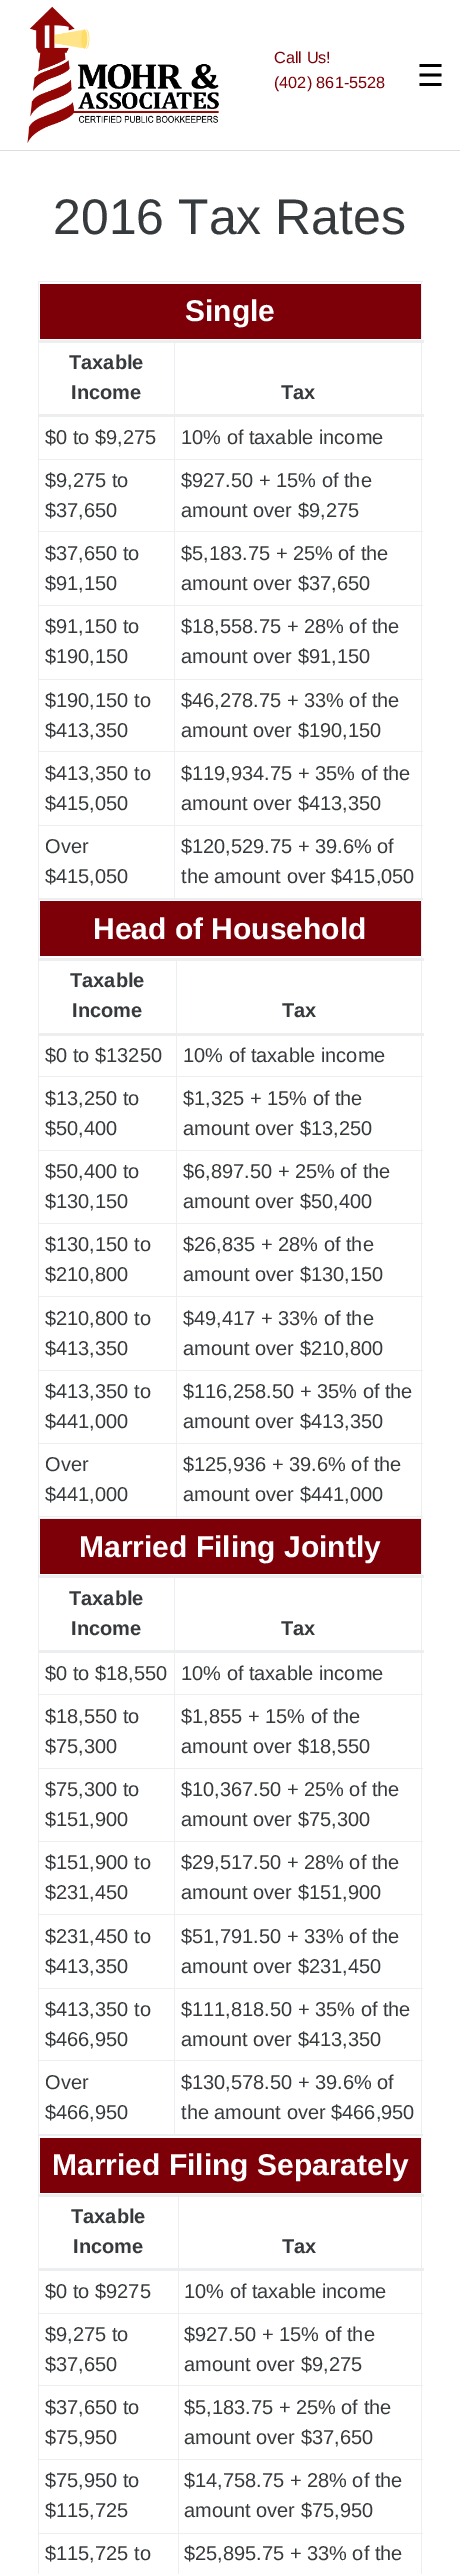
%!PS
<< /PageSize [460 2574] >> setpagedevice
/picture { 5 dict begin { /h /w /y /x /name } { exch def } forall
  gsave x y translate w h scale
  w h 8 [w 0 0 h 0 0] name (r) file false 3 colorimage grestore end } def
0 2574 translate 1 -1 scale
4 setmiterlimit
1 setgray
0 0 460 2574 rectfill
0.867 setgray
0 150 460 1 rectfill
(img1.rgb) 27 6 192 137 picture
/LiberationSans-Regular [16.25 0 0 -16.25 0 0] selectfont
0.49 0 0.035 setrgbcolor
274 63 moveto (Call Us!) show
274 88 moveto (\(402\) 861-5528) show
/DejaVuSans-Regular [30 0 0 -30 0 0] selectfont
0 setgray
417 86 moveto (☰) show
/LiberationSans-Regular [50 0 0 -50 0 0] selectfont
0.216 0.227 0.235 setrgbcolor
53 234 moveto (2016 Tax Rates) show
0.925 0.933 0.937 setrgbcolor
38 281 385 1 rectfill
421 281 1 618 rectfill
38 898 385 2 rectfill
38 281 1 618 rectfill
0.49 0 0.035 setrgbcolor
40 284 381 55 rectfill
0.925 0.933 0.937 setrgbcolor
174 459 249 1 rectfill
174 531 249 1 rectfill
174 605 249 1 rectfill
174 679 249 1 rectfill
174 751 249 1 rectfill
174 825 249 1 rectfill
174 825 1 74 rectfill
38 825 137 1 rectfill
174 751 1 75 rectfill
38 751 137 1 rectfill
174 679 1 74 rectfill
38 679 137 1 rectfill
174 605 1 75 rectfill
38 605 137 1 rectfill
174 531 1 75 rectfill
38 531 137 1 rectfill
174 459 1 74 rectfill
38 459 137 1 rectfill
174 340 1 120 rectfill
38 340 386 3 rectfill
/LiberationSans-Bold [30 0 0 -30 0 0] selectfont
1 setgray
185 321 moveto (Single) show
/LiberationSans-Bold [20 0 0 -20 0 0] selectfont
0.216 0.227 0.235 setrgbcolor
69 369 moveto (Taxable) show
71 399 moveto (Income) show
0.925 0.933 0.937 setrgbcolor
38 414 386 3 rectfill
0.216 0.227 0.235 setrgbcolor
281 399 moveto (Tax) show
/LiberationSans-Regular [20 0 0 -20 0 0] selectfont
45 444 moveto ($0 to $9,275) show
181 444 moveto (10% of taxable income) show
45 487 moveto ($9,275 to) show
45 517 moveto ($37,650) show
181 487 moveto ($927.50 + 15% of the) show
181 517 moveto (amount over $9,275) show
45 560 moveto ($37,650 to) show
45 590 moveto ($91,150) show
181 560 moveto ($5,183.75 + 25% of the) show
181 590 moveto (amount over $37,650) show
45 633 moveto ($91,150 to) show
45 663 moveto ($190,150) show
181 633 moveto ($18,558.75 + 28% of the) show
181 663 moveto (amount over $91,150) show
45 707 moveto ($190,150 to) show
45 737 moveto ($413,350) show
181 707 moveto ($46,278.75 + 33% of the) show
181 737 moveto (amount over $190,150) show
45 780 moveto ($413,350 to) show
45 810 moveto ($415,050) show
181 780 moveto ($119,934.75 + 35% of the) show
181 810 moveto (amount over $413,350) show
45 853 moveto (Over) show
45 883 moveto ($415,050) show
181 853 moveto ($120,529.75 + 39.6% of) show
181 883 moveto (the amount over $415,050) show
0.925 0.933 0.937 setrgbcolor
421 899 1 619 rectfill
38 1516 385 1 rectfill
38 899 1 619 rectfill
0.49 0 0.035 setrgbcolor
40 901 381 55 rectfill
0.925 0.933 0.937 setrgbcolor
176 1076 247 1 rectfill
176 1150 247 1 rectfill
176 1223 247 1 rectfill
176 1296 247 1 rectfill
176 1370 247 1 rectfill
176 1443 247 1 rectfill
176 1443 1 75 rectfill
38 1443 140 1 rectfill
176 1370 1 74 rectfill
38 1370 140 1 rectfill
176 1296 1 75 rectfill
38 1296 140 1 rectfill
176 1223 1 75 rectfill
38 1223 140 1 rectfill
176 1150 1 74 rectfill
38 1150 140 1 rectfill
176 1076 1 75 rectfill
38 1076 140 1 rectfill
176 958 1 120 rectfill
38 958 386 3 rectfill
/LiberationSans-Bold [30 0 0 -30 0 0] selectfont
1 setgray
93 939 moveto (Head of Household) show
/LiberationSans-Bold [20 0 0 -20 0 0] selectfont
0.216 0.227 0.235 setrgbcolor
70 987 moveto (Taxable) show
72 1017 moveto (Income) show
0.925 0.933 0.937 setrgbcolor
38 1033 386 3 rectfill
0.216 0.227 0.235 setrgbcolor
282 1017 moveto (Tax) show
/LiberationSans-Regular [20 0 0 -20 0 0] selectfont
45 1062 moveto ($0 to $13250) show
183 1062 moveto (10% of taxable income) show
45 1105 moveto ($13,250 to) show
45 1135 moveto ($50,400) show
183 1105 moveto ($1,325 + 15% of the) show
183 1135 moveto (amount over $13,250) show
45 1178 moveto ($50,400 to) show
45 1208 moveto ($130,150) show
183 1178 moveto ($6,897.50 + 25% of the) show
183 1208 moveto (amount over $50,400) show
45 1251 moveto ($130,150 to) show
45 1281 moveto ($210,800) show
183 1251 moveto ($26,835 + 28% of the) show
183 1281 moveto (amount over $130,150) show
45 1325 moveto ($210,800 to) show
45 1355 moveto ($413,350) show
183 1325 moveto ($49,417 + 33% of the) show
183 1355 moveto (amount over $210,800) show
45 1398 moveto ($413,350 to) show
45 1428 moveto ($441,000) show
183 1398 moveto ($116,258.50 + 35% of the) show
183 1428 moveto (amount over $413,350) show
45 1471 moveto (Over) show
45 1501 moveto ($441,000) show
183 1471 moveto ($125,936 + 39.6% of the) show
183 1501 moveto (amount over $441,000) show
0.925 0.933 0.937 setrgbcolor
38 1518 385 1 rectfill
421 1518 1 617 rectfill
38 2134 385 2 rectfill
38 1518 1 1056 rectfill
0.49 0 0.035 setrgbcolor
40 1519 381 55 rectfill
0.925 0.933 0.937 setrgbcolor
174 1694 249 1 rectfill
174 1768 249 1 rectfill
174 1841 249 1 rectfill
174 1914 249 1 rectfill
174 1988 249 1 rectfill
174 2060 249 1 rectfill
174 2060 1 75 rectfill
38 2060 137 1 rectfill
174 1988 1 73 rectfill
38 1988 137 1 rectfill
174 1914 1 75 rectfill
38 1914 137 1 rectfill
174 1841 1 74 rectfill
38 1841 137 1 rectfill
174 1768 1 75 rectfill
38 1768 137 1 rectfill
174 1694 1 75 rectfill
38 1694 137 1 rectfill
174 1576 1 119 rectfill
38 1575 386 3 rectfill
/LiberationSans-Bold [30 0 0 -30 0 0] selectfont
1 setgray
79 1557 moveto (Married Filing Jointly) show
/LiberationSans-Bold [20 0 0 -20 0 0] selectfont
0.216 0.227 0.235 setrgbcolor
69 1605 moveto (Taxable) show
71 1635 moveto (Income) show
0.925 0.933 0.937 setrgbcolor
38 1650 386 3 rectfill
0.216 0.227 0.235 setrgbcolor
281 1635 moveto (Tax) show
/LiberationSans-Regular [20 0 0 -20 0 0] selectfont
45 1680 moveto ($0 to $18,550) show
181 1680 moveto (10% of taxable income) show
45 1723 moveto ($18,550 to) show
45 1753 moveto ($75,300) show
181 1723 moveto ($1,855 + 15% of the) show
181 1753 moveto (amount over $18,550) show
45 1796 moveto ($75,300 to) show
45 1826 moveto ($151,900) show
181 1796 moveto ($10,367.50 + 25% of the) show
181 1826 moveto (amount over $75,300) show
45 1869 moveto ($151,900 to) show
45 1899 moveto ($231,450) show
181 1869 moveto ($29,517.50 + 28% of the) show
181 1899 moveto (amount over $151,900) show
45 1943 moveto ($231,450 to) show
45 1973 moveto ($413,350) show
181 1943 moveto ($51,791.50 + 33% of the) show
181 1973 moveto (amount over $231,450) show
45 2016 moveto ($413,350 to) show
45 2046 moveto ($466,950) show
181 2016 moveto ($111,818.50 + 35% of the) show
181 2046 moveto (amount over $413,350) show
45 2089 moveto (Over) show
45 2119 moveto ($466,950) show
181 2089 moveto ($130,578.50 + 39.6% of) show
181 2119 moveto (the amount over $466,950) show
0.925 0.933 0.937 setrgbcolor
421 2135 1 439 rectfill
0.49 0 0.035 setrgbcolor
40 2138 381 55 rectfill
0.925 0.933 0.937 setrgbcolor
178 2313 245 1 rectfill
178 2385 245 1 rectfill
178 2459 245 1 rectfill
178 2533 245 1 rectfill
178 2533 1 41 rectfill
38 2533 141 1 rectfill
178 2459 1 75 rectfill
38 2459 141 1 rectfill
178 2385 1 75 rectfill
38 2385 141 1 rectfill
178 2313 1 73 rectfill
38 2313 141 1 rectfill
178 2194 1 120 rectfill
38 2194 386 3 rectfill
/LiberationSans-Bold [30 0 0 -30 0 0] selectfont
1 setgray
52 2175 moveto (Married Filing Separately) show
/LiberationSans-Bold [20 0 0 -20 0 0] selectfont
0.216 0.227 0.235 setrgbcolor
71 2223 moveto (Taxable) show
73 2253 moveto (Income) show
0.925 0.933 0.937 setrgbcolor
38 2268 386 3 rectfill
0.216 0.227 0.235 setrgbcolor
282 2253 moveto (Tax) show
/LiberationSans-Regular [20 0 0 -20 0 0] selectfont
45 2298 moveto ($0 to $9275) show
184 2298 moveto (10% of taxable income) show
45 2341 moveto ($9,275 to) show
45 2371 moveto ($37,650) show
184 2341 moveto ($927.50 + 15% of the) show
184 2371 moveto (amount over $9,275) show
45 2414 moveto ($37,650 to) show
45 2444 moveto ($75,950) show
184 2414 moveto ($5,183.75 + 25% of the) show
184 2444 moveto (amount over $37,650) show
45 2487 moveto ($75,950 to) show
45 2517 moveto ($115,725) show
184 2487 moveto ($14,758.75 + 28% of the) show
184 2517 moveto (amount over $75,950) show
45 2560 moveto ($115,725 to) show
184 2560 moveto ($25,895.75 + 33% of the) show
showpage
